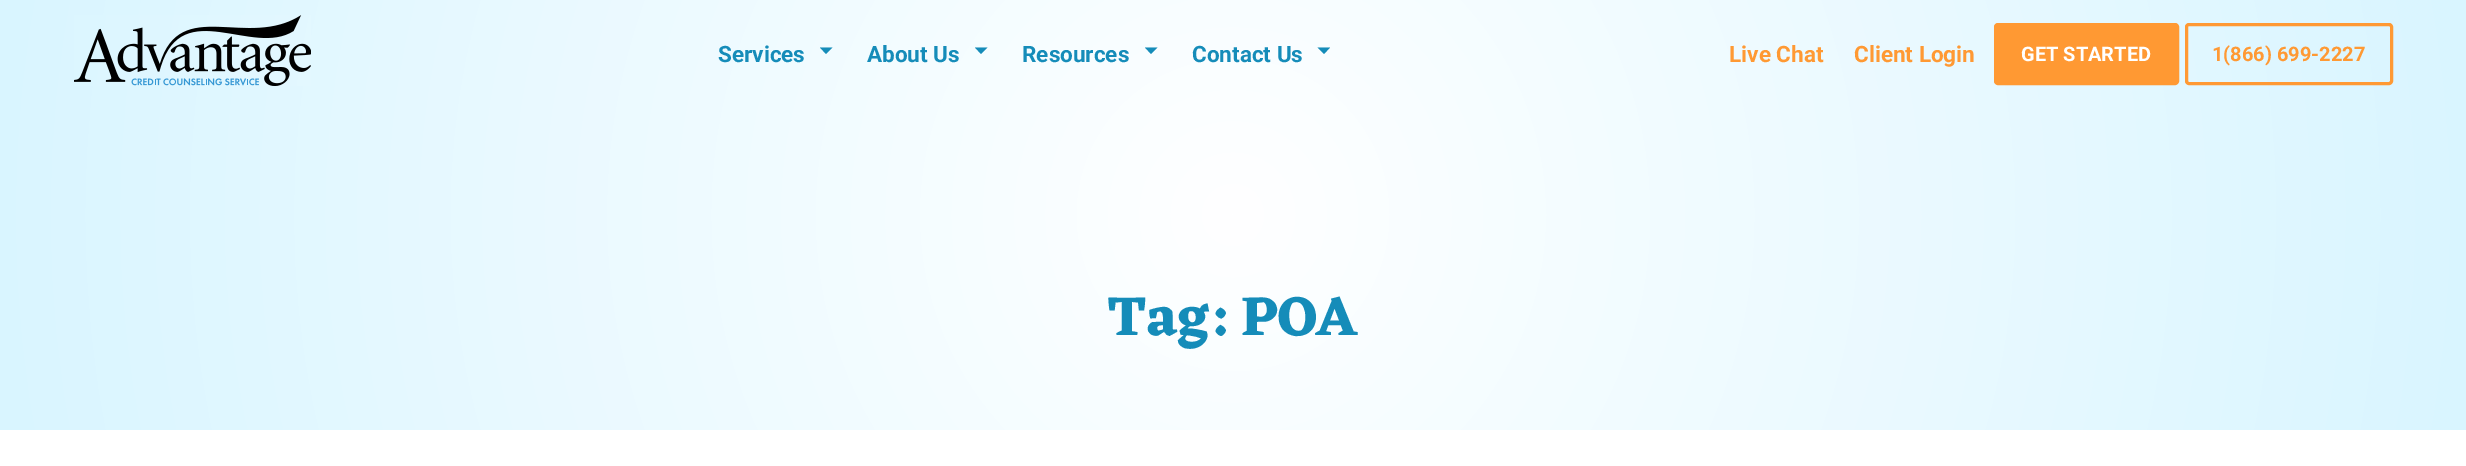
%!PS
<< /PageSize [2466 466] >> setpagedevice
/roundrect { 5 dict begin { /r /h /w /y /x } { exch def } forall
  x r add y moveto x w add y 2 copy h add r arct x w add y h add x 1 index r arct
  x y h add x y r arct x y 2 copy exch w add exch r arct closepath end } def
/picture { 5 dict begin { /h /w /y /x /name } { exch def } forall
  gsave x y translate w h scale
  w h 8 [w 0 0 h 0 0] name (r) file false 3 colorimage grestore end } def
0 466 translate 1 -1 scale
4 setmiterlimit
1 setgray
0 0 2466 466 rectfill
gsave newpath 0 0 moveto 2466 0 lineto 2466 430 lineto 0 430 lineto closepath clip newpath 1233 215 translate 1252 1252 scale
<< /ShadingType 3 /ColorSpace /DeviceRGB /Coords [0 0 0 0 0 1] /Extend [true true] /Function << /FunctionType 2 /Domain [0 1] /C0 [1 1 1] /C1 [0.851 0.961 1] /N 1 >> >> shfill grestore
(img1.rgb) 74 15 237 71 picture
/Roboto-Bold [22.5 0 0 -22.5 0 0] selectfont
0.082 0.549 0.725 setrgbcolor
718 62 moveto (Services) show
newpath 820 47.5 moveto 832.5 47.5 lineto 826 54 lineto closepath fill
867 62 moveto (About Us) show
newpath 975 47.5 moveto 987.5 47.5 lineto 981 54 lineto closepath fill
1022 62 moveto (Resources) show
newpath 1145 47.5 moveto 1157.5 47.5 lineto 1151 54 lineto closepath fill
1192 62 moveto (Contact Us) show
newpath 1317.5 47.5 moveto 1330 47.5 lineto 1324 54 lineto closepath fill
1 0.6 0.2 setrgbcolor
1729 62 moveto (Live Chat) show
1854 62 moveto (Client Login) show
1995.5 24.5 182 59 2.5 roundrect gsave fill grestore
3 setlinewidth
stroke
/Roboto-Bold [20 0 0 -20 0 0] selectfont
1 setgray
2021 61 moveto (GET STARTED) show
1 0.6 0.2 setrgbcolor
2186.5 24.5 205 59 2.5 roundrect stroke
2212 61 moveto (1\(866\) 699-2227) show
/Eczar-Bold [56.25 0 0 -56.25 0 0] selectfont
0.082 0.549 0.725 setrgbcolor
1108 335 moveto (Tag: POA) show
showpage
